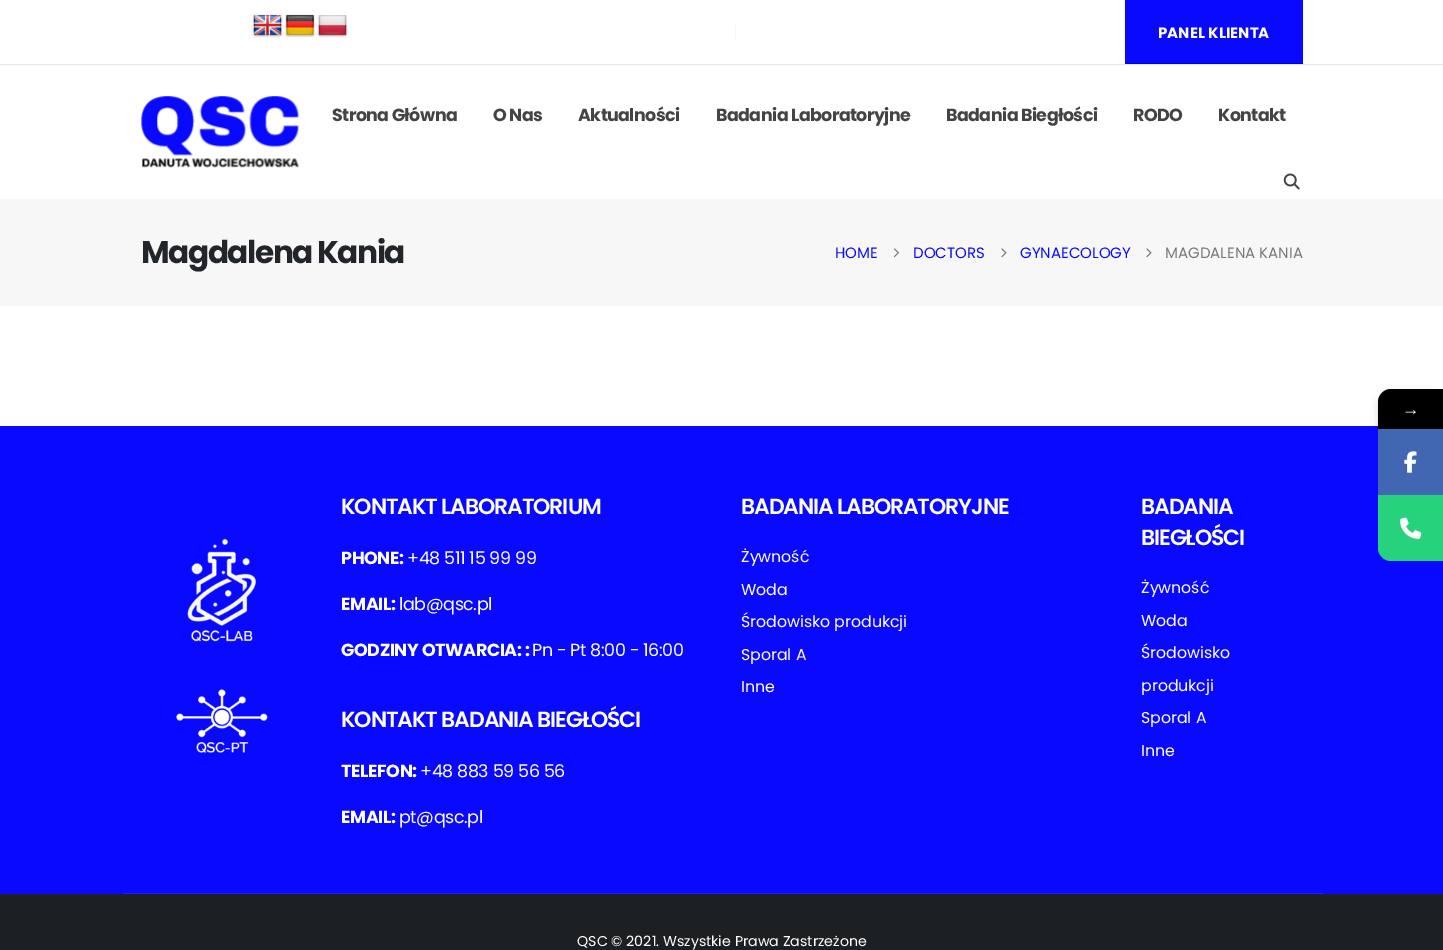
%!PS
<< /PageSize [1443 950] /PageUsesTransparency true >> setpagedevice
/alpha { dup .setfillconstantalpha .setstrokeconstantalpha } def
/roundrect { 5 dict begin { /r /h /w /y /x } { exch def } forall
  x r add y moveto x w add y 2 copy h add r arct x w add y h add x 1 index r arct
  x y h add x y r arct x y 2 copy exch w add exch r arct closepath end } def
/shadow { 12 dict begin { /a /b /q /h /w /y /x } { exch def } forall gsave /was 0 def
  9 -2 -9 { dup b mul 4 div /e exch def 1 sub .425 mul 2.718 exch exp 1 add a .99 .min exch div /now exch def
    1 1 now sub 1 was sub div sub alpha /was now def
    w h .min e 2 mul add 0 gt { x e sub y e sub w e 2 mul add h e 2 mul add
      q e add b .6 mul add w h .min 2 div e add .min 0 .max roundrect fill } if } for grestore end } def
/picture { 5 dict begin { /h /w /y /x /name } { exch def } forall
  gsave x y translate w h scale
  w h 8 [w 0 0 h 0 0] name (r) file false 3 colorimage grestore end } def
0 .pushpdf14devicefilter
0 950 translate 1 -1 scale
4 setmiterlimit
1 setgray
0 0 1443 950 rectfill
0.906 setgray
0 64 1443 1 rectfill
(img1.rgb) 252 14 31 24 picture
(img2.rgb) 285 14 30 24 picture
(img3.rgb) 317 15 30 23 picture
0.961 setgray
735 23 1 18 rectfill
0.035 0.035 1 setrgbcolor
1126 0 177 63 rectfill
0 0 0.835 setrgbcolor
1125 63 178 1 rectfill
0.035 0.035 1 setrgbcolor
1125 0 1 64 rectfill
/Poppins-Bold [15 0 0 -15 0 0] selectfont
1 setgray
1158 38 moveto (PANEL KLIENTA) show
(img4.rgb) 141 96 159 72 picture
/Poppins-Bold [17.5 0 0 -17.5 0 0] selectfont
0.267 setgray
332 121 moveto -0.6 0 (Strona Główna) ashow
493 121 moveto -0.6 0 (O Nas) ashow
578 121 moveto -0.6 0 (Aktualności) ashow
716 121 moveto -0.6 0 (Badania Laboratoryjne) ashow
946 121 moveto -0.6 0 (Badania Biegłości) ashow
1133 121 moveto -0.6 0 (RODO) ashow
1218 121 moveto -0.6 0 (Kontakt) ashow
(img5.rgb) 1283 173 17 17 picture
0.969 setgray
0 199 1443 107 rectfill
/Poppins-Bold [31.25 0 0 -31.25 0 0] selectfont
0.133 0.145 0.161 setrgbcolor
141 263 moveto -1.5 0 (Magdalena Kania) ashow
/Poppins-Regular [15 0 0 -15 0 0] selectfont
0.035 0.035 1 setrgbcolor
835 258 moveto (HOME) show
(img6.rgb) 893 248 6 10 picture
913 258 moveto (DOCTORS) show
(img7.rgb) 1001 248 6 10 picture
1020 258 moveto (GYNAECOLOGY) show
(img7.rgb) 1146 248 6 10 picture
0.467 setgray
1165 258 moveto (MAGDALENA KANIA) show
0.035 0.035 1 setrgbcolor
0 426 1443 468 rectfill
0.133 0.133 1 setrgbcolor
123 893 1200 1 rectfill
(img8.rgb) 176 538 92 215 picture
/Poppins-SemiBold [22 0 0 -22 0 0] selectfont
1 setgray
341 514 moveto -1.1 0 (KONTAKT LABORATORIUM) ashow
/Poppins-Bold [17.5 0 0 -17.5 0 0] selectfont
341 564 moveto -0.4 0 (PHONE:) ashow
/Poppins-Regular [17.5 0 0 -17.5 0 0] selectfont
407 564 moveto -0.4 0 (+48 511 15 99 99) ashow
/Poppins-Bold [17.5 0 0 -17.5 0 0] selectfont
341 610 moveto -0.4 0 (EMAIL:) ashow
/Poppins-Regular [17.5 0 0 -17.5 0 0] selectfont
399 610 moveto -0.4 0 (lab@qsc.pl) ashow
/Poppins-Bold [17.5 0 0 -17.5 0 0] selectfont
341 656 moveto -0.4 0 (GODZINY OTWARCIA: :) ashow
/Poppins-Regular [17.5 0 0 -17.5 0 0] selectfont
532 656 moveto -0.4 0 (Pn - Pt 8:00 - 16:00) ashow
/Poppins-SemiBold [22 0 0 -22 0 0] selectfont
341 727 moveto -1.1 0 (KONTAKT BADANIA BIEGŁOŚCI) ashow
/Poppins-Bold [17.5 0 0 -17.5 0 0] selectfont
341 777 moveto -0.4 0 (TELEFON:) ashow
/Poppins-Regular [17.5 0 0 -17.5 0 0] selectfont
420 777 moveto -0.4 0 (+48 883 59 56 56) ashow
/Poppins-Bold [17.5 0 0 -17.5 0 0] selectfont
341 823 moveto -0.4 0 (EMAIL:) ashow
/Poppins-Regular [17.5 0 0 -17.5 0 0] selectfont
399 823 moveto -0.4 0 (pt@qsc.pl) ashow
/Poppins-SemiBold [22 0 0 -22 0 0] selectfont
741 514 moveto -1.1 0 (BADANIA LABORATORYJNE) ashow
/Poppins-Regular [15.75 0 0 -15.75 0 0] selectfont
741 562 moveto (Żywność) show
741 595 moveto (Woda) show
741 627 moveto (Środowisko produkcji) show
741 660 moveto (Sporal A) show
741 692 moveto (Inne) show
/Poppins-SemiBold [22 0 0 -22 0 0] selectfont
1141 514 moveto -1.1 0 (BADANIA) ashow
1141 545 moveto -1.1 0 (BIEGŁOŚCI) ashow
/Poppins-Regular [15.75 0 0 -15.75 0 0] selectfont
1141 593 moveto (Żywność) show
1141 626 moveto (Woda) show
1141 658 moveto (Środowisko) show
1141 691 moveto (produkcji) show
1141 723 moveto (Sporal A) show
1141 756 moveto (Inne) show
0.11 0.125 0.137 setrgbcolor
0 894 1443 56 rectfill
/Poppins-Regular [14.2 0 0 -14.2 0 0] selectfont
1 setgray
577 946 moveto (QSC © 2021. Wszystkie Prawa Zastrzeżone) show
0 setgray
1378 393 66 40 13 4 0.16 shadow
newpath 1391 389 moveto 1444 389 lineto 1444 429 lineto 1378 429 lineto 1378 402 lineto 1378 395 1384 389 1391 389 curveto closepath fill
/LiberationSerif-Regular [17.5 0 0 -17.5 0 0] selectfont
1 setgray
1402 415 moveto (→) show
0.259 0.404 0.698 setrgbcolor
1378 429 65 66 rectfill
(img9.rgb) 1404 451 13 22 picture
0.149 0.827 0.486 setrgbcolor
newpath 1378 495 moveto 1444 495 lineto 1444 561 lineto 1391 561 lineto 1384 561 1378 555 1378 548 curveto closepath fill
(img10.rgb) 1400 517 22 22 picture
.poppdf14devicefilter showpage
